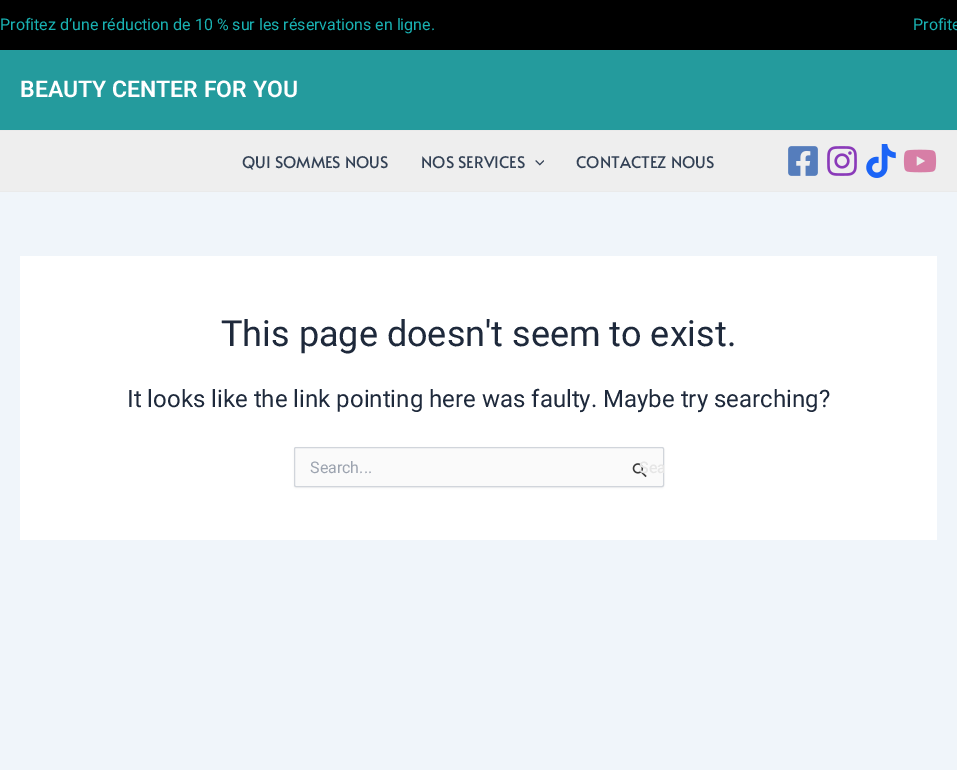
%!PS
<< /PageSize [957 770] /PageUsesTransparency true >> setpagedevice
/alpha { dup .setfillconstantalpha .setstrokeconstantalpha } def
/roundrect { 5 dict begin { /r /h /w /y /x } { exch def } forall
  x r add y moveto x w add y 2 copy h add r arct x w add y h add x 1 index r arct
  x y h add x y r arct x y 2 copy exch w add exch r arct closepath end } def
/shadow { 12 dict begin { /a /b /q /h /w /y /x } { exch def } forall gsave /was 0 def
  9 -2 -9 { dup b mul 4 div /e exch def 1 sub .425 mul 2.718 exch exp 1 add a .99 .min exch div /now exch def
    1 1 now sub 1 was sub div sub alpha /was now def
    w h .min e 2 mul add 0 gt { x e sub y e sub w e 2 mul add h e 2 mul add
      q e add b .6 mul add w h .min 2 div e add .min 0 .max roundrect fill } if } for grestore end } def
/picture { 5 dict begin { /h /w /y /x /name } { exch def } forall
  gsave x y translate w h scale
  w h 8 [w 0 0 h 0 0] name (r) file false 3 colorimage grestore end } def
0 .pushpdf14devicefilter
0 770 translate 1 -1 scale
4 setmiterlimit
0.941 0.961 0.98 setrgbcolor
0 0 957 770 rectfill
0 setgray
0 0 957 50 rectfill
/Roboto-Regular [16 0 0 -16 0 0] selectfont
0.098 0.698 0.702 setrgbcolor
0 30 moveto (Profitez d’une réduction de 10 % sur les réservations en ligne.) show
913 30 moveto (Profite) show
0.141 0.608 0.616 setrgbcolor
0 50 957 80 rectfill
0.918 setgray
0 130 957 1 rectfill
/Roboto-SemiBold [23 0 0 -23 0 0] selectfont
1 setgray
20 97 moveto (BEAUTY CENTER FOR YOU) show
0.933 setgray
0 131 957 60 rectfill
0.918 setgray
0 191 957 1 rectfill
/Alata-Regular [16 0 0 -16 0 0] selectfont
0.2 0.255 0.333 setrgbcolor
242 168 moveto (QUI SOMMES NOUS) show
421 168 moveto (NOS SERVICES) show
(img1.rgb) 535 160 9 6 picture
576 168 moveto (CONTACTEZ NOUS) show
(img2.rgb) 788 146 30 30 picture
(img3.rgb) 827 146 30 30 picture
(img4.rgb) 866 144 30 34 picture
(img5.rgb) 903 149 34 24 picture
1 setgray
20 256 917 284 rectfill
/Roboto-Regular [36 0 0 -36 0 0] selectfont
0.118 0.161 0.231 setrgbcolor
221 346 moveto (This page doesn't seem to exist.) show
/Roboto-Regular [24 0 0 -24 0 0] selectfont
127 407 moveto (It looks like the link pointing here was faulty. Maybe try searching?) show
0 setgray
294 448 370 40 2 1 0.05 shadow
0.98 setgray
294.5 447.5 369 39 1.5 roundrect gsave fill grestore
0.82 0.835 0.859 setrgbcolor
stroke
/Roboto-Regular [16 0 0 -16 0 0] selectfont
0.612 0.639 0.686 setrgbcolor
310 473 moveto (Search...) show
(img6.rgb) 632 463 15 15 picture
gsave
619 447 45 42 2 roundrect clip newpath
/Roboto-Medium [16 0 0 -16 0 0] selectfont
0.902 setgray
639 473 moveto (Sea) show
grestore
.poppdf14devicefilter showpage
